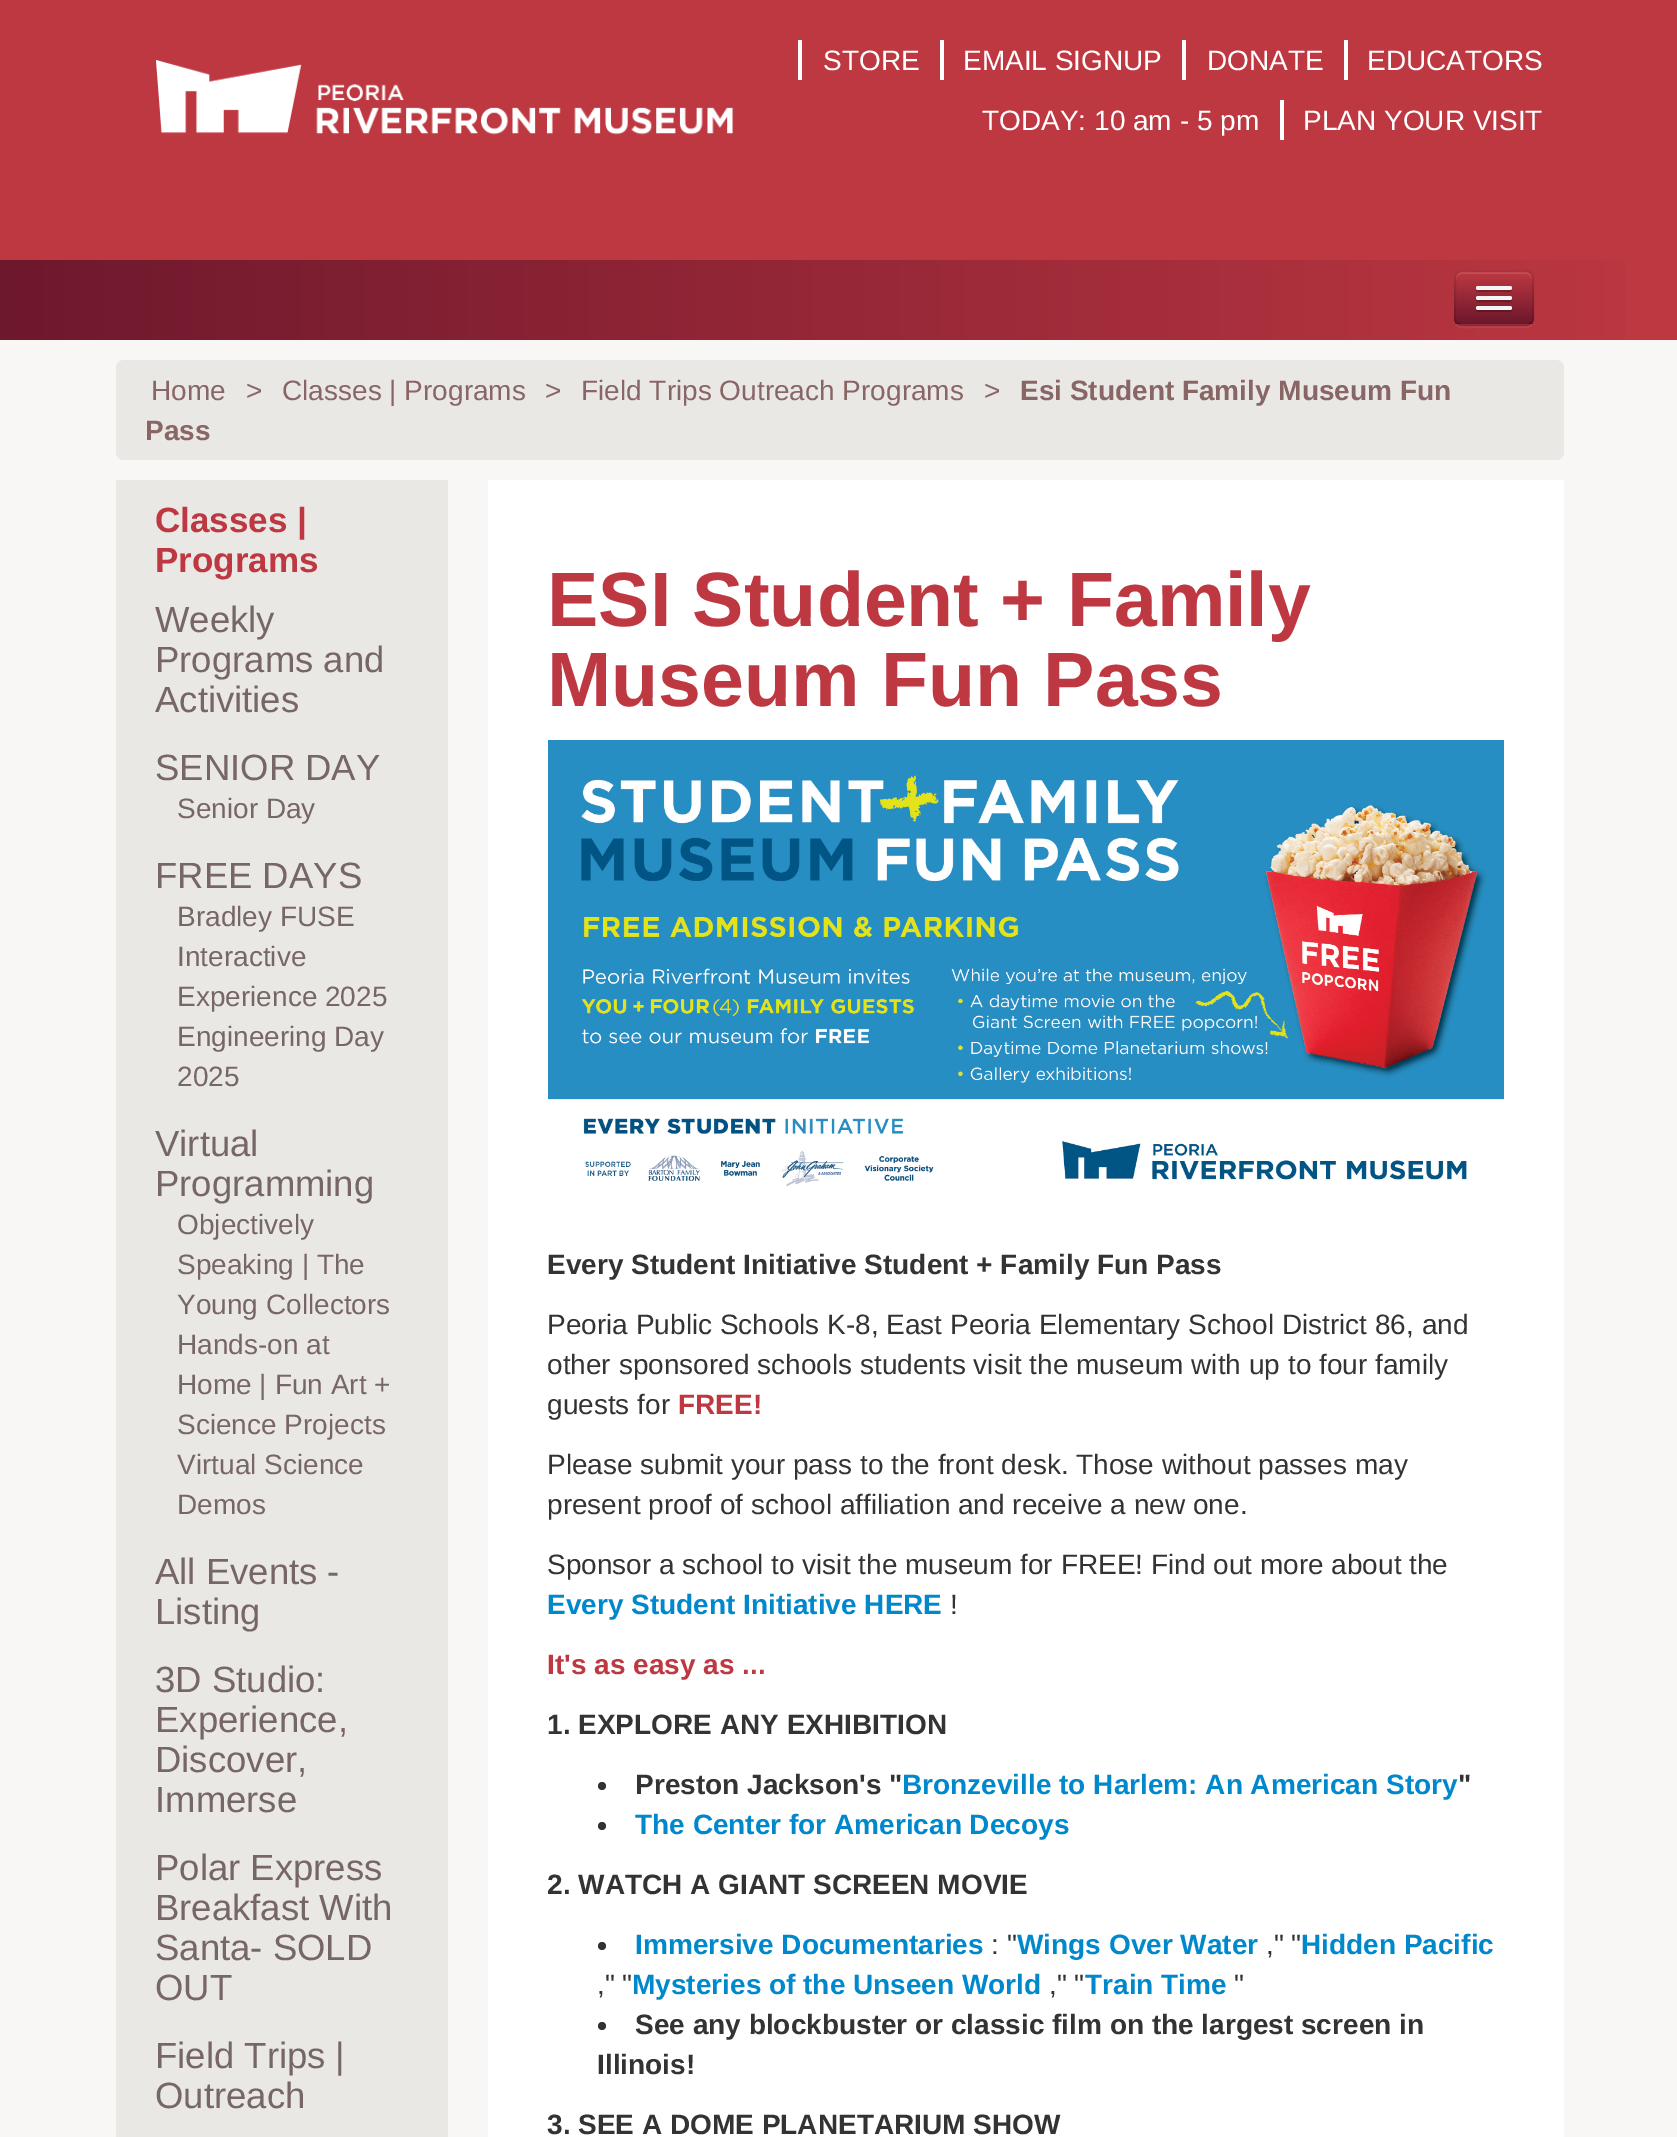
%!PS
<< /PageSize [1677 2137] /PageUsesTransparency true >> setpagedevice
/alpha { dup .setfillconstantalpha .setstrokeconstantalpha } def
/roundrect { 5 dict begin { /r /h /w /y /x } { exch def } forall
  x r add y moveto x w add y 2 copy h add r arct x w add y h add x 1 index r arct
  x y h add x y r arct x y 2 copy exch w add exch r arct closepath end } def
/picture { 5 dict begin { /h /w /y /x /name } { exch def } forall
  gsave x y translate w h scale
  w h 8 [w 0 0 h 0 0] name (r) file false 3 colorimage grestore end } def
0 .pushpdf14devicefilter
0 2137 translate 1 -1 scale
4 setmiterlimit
0.745 0.22 0.259 setrgbcolor
0 0 1677 2137 rectfill
(img1.rgb) 156 60 578 75 picture
1 setgray
798 40 4 40 rectfill
940 40 4 40 rectfill
/LiberationSans-Regular [28 0 0 -28 0 0] selectfont
823 70 moveto (STORE) show
1182 40 4 40 rectfill
963 70 moveto (EMAIL SIGNUP) show
1344 40 4 40 rectfill
1207 70 moveto (DONATE) show
1367 70 moveto (EDUCATORS) show
1280 100 4 40 rectfill
982 130 moveto (TODAY: 10 am - 5 pm) show
1303 130 moveto (PLAN YOUR VISIT) show
gsave newpath 0 260 moveto 1626 260 lineto 1626 340 lineto 0 340 lineto closepath clip newpath
<< /ShadingType 2 /ColorSpace /DeviceRGB /Coords [-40 300 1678 300] /Extend [true true] /Function << /FunctionType 2 /Domain [0 1] /C0 [0.424 0.09 0.173] /C1 [0.745 0.22 0.259] /N 1 >> >> shfill grestore
0.07 alpha
newpath 1454 318 moveto 1454 330 1463 328 1473 328 curveto 1515 328 lineto 1525 328 1534 330 1534 318 curveto 1534 322 1530 326 1526 326 curveto 1462 326 lineto 1458 326 1454 322 1454 318 curveto closepath fill
1 alpha
0.745 0.22 0.259 setrgbcolor
1454 270 80 56 8 roundrect fill
gsave
1454 270 80 56 8 roundrect clip newpath
gsave newpath 1454 272 moveto 1534 272 lineto 1534 324 lineto 1454 324 lineto closepath clip newpath
<< /ShadingType 2 /ColorSpace /DeviceRGB /Coords [1494 272 1494 324] /Extend [true true] /Function << /FunctionType 2 /Domain [0 1] /C0 [0.745 0.22 0.259] /C1 [0.424 0.09 0.173] /N 1 >> >> shfill grestore
grestore
0.1 alpha
1 setgray
newpath 1462 274 moveto 1526 274 lineto 1529 274 1532 277 1532 280 curveto 1532 270 1524 272 1515 272 curveto 1473 272 lineto 1464 272 1456 270 1456 280 curveto 1456 277 1459 274 1462 274 curveto closepath fill
0.25 alpha
0 setgray
2 setlinewidth
newpath 1531 323 moveto 1529.5 324.5 1528 325 1526 325 curveto 1462 325 lineto 1460 325 1458.5 324.5 1457 323 curveto stroke
0.1 alpha
newpath 1457 323 moveto 1455.5 321.5 1455 320 1455 318 curveto 1455 278 lineto 1455 276 1455.5 274.5 1457 273 curveto 1458.5 271.5 1460 271 1462 271 curveto 1526 271 lineto 1528 271 1529.5 271.5 1531 273 curveto 1532.5 274.5 1533 276 1533 278 curveto 1533 318 lineto 1533 320 1532.5 321.5 1531 323 curveto stroke
0.25 alpha
newpath 1476.5 289 moveto 1474 293 1483 292 1483.5 292 curveto 1504.5 292 lineto 1505 292 1514 293 1511.5 289 curveto 1511.5 289.5 1510.5 290 1510 290 curveto 1478 290 lineto 1477.5 290 1476.5 289.5 1476.5 289 curveto closepath fill
1 alpha
0.961 setgray
1476 286 36 4 2 roundrect fill
0.25 alpha
0 setgray
newpath 1476.5 299 moveto 1474 303 1483 302 1483.5 302 curveto 1504.5 302 lineto 1505 302 1514 303 1511.5 299 curveto 1511.5 299.5 1510.5 300 1510 300 curveto 1478 300 lineto 1477.5 300 1476.5 299.5 1476.5 299 curveto closepath fill
1 alpha
0.961 setgray
1476 296 36 4 2 roundrect fill
0.25 alpha
0 setgray
newpath 1476.5 309 moveto 1474 313 1483 312 1483.5 312 curveto 1504.5 312 lineto 1505 312 1514 313 1511.5 309 curveto 1511.5 309.5 1510.5 310 1510 310 curveto 1478 310 lineto 1477.5 310 1476.5 309.5 1476.5 309 curveto closepath fill
1 alpha
0.961 setgray
1476 306 36 4 2 roundrect fill
0.973 0.969 0.961 setrgbcolor
0 340 1677 1797 rectfill
0.918 0.91 0.898 setrgbcolor
116 360 1448 100 8 roundrect fill
0.533 0.4 0.4 setrgbcolor
151 400 moveto (Home) show
246 400 moveto (>) show
282 400 moveto (Classes | Programs) show
545 400 moveto (>) show
581 400 moveto (Field Trips Outreach Programs) show
984 400 moveto (>) show
/LiberationSans-Bold [28 0 0 -28 0 0] selectfont
1020 400 moveto (Esi Student Family Museum Fun) show
145 440 moveto (Pass) show
0.918 0.91 0.898 setrgbcolor
116 480 332 1657 rectfill
/LiberationSans-Bold [35 0 0 -35 0 0] selectfont
0.745 0.22 0.259 setrgbcolor
155 532 moveto (Classes |) show
155 572 moveto (Programs) show
/LiberationSans-Regular [36.5 0 0 -36.5 0 0] selectfont
0.467 0.4 0.4 setrgbcolor
155 632 moveto (Weekly) show
155 672 moveto (Programs and) show
155 712 moveto (Activities) show
155 780 moveto (SENIOR DAY) show
/LiberationSans-Regular [28 0 0 -28 0 0] selectfont
177 818 moveto (Senior Day) show
/LiberationSans-Regular [36.5 0 0 -36.5 0 0] selectfont
155 888 moveto (FREE DAYS) show
/LiberationSans-Regular [28 0 0 -28 0 0] selectfont
177 926 moveto (Bradley FUSE) show
177 966 moveto (Interactive) show
177 1006 moveto (Experience 2025) show
177 1046 moveto (Engineering Day) show
177 1086 moveto (2025) show
/LiberationSans-Regular [36.5 0 0 -36.5 0 0] selectfont
155 1156 moveto (Virtual) show
155 1196 moveto (Programming) show
/LiberationSans-Regular [28 0 0 -28 0 0] selectfont
177 1234 moveto (Objectively) show
177 1274 moveto (Speaking | The) show
177 1314 moveto (Young Collectors) show
177 1354 moveto (Hands-on at) show
177 1394 moveto (Home | Fun Art +) show
177 1434 moveto (Science Projects) show
177 1474 moveto (Virtual Science) show
177 1514 moveto (Demos) show
/LiberationSans-Regular [36.5 0 0 -36.5 0 0] selectfont
155 1584 moveto (All Events -) show
155 1624 moveto (Listing) show
155 1692 moveto (3D Studio:) show
155 1732 moveto (Experience,) show
155 1772 moveto (Discover,) show
155 1812 moveto (Immerse) show
155 1880 moveto (Polar Express) show
155 1920 moveto (Breakfast With) show
155 1960 moveto (Santa- SOLD) show
155 2000 moveto (OUT) show
155 2068 moveto (Field Trips |) show
155 2108 moveto (Outreach) show
1 setgray
488 480 1076 1657 rectfill
/LiberationSans-Bold [77 0 0 -77 0 0] selectfont
0.745 0.22 0.259 setrgbcolor
547 626 moveto (ESI Student + Family) show
547 706 moveto (Museum Fun Pass) show
(img2.rgb) 548 740 956 447 picture
/LiberationSans-Bold [28 0 0 -28 0 0] selectfont
0.2 setgray
547 1274 moveto (Every Student Initiative Student + Family Fun Pass) show
/LiberationSans-Regular [28 0 0 -28 0 0] selectfont
547 1334 moveto (Peoria Public Schools K-8, East Peoria Elementary School District 86, and) show
547 1374 moveto (other sponsored schools students visit the museum with up to four family) show
547 1414 moveto (guests for) show
/LiberationSans-Bold [28 0 0 -28 0 0] selectfont
0.745 0.22 0.259 setrgbcolor
678 1414 moveto (FREE!) show
/LiberationSans-Regular [28 0 0 -28 0 0] selectfont
0.2 setgray
547 1474 moveto (Please submit your pass to the front desk. Those without passes may) show
547 1514 moveto (present proof of school affiliation and receive a new one.) show
547 1574 moveto (Sponsor a school to visit the museum for FREE! Find out more about the) show
/LiberationSans-Bold [28 0 0 -28 0 0] selectfont
0 0.533 0.8 setrgbcolor
547 1614 moveto (Every Student Initiative HERE) show
/LiberationSans-Regular [28 0 0 -28 0 0] selectfont
0.2 setgray
950 1614 moveto (!) show
/LiberationSans-Bold [28 0 0 -28 0 0] selectfont
0.745 0.22 0.259 setrgbcolor
547 1674 moveto (It's as easy as ...) show
0.2 setgray
547 1734 moveto (1. EXPLORE ANY EXHIBITION) show
635 1794 moveto (Preston Jackson's ") show
0 0.533 0.8 setrgbcolor
902 1794 moveto (Bronzeville to Harlem: An American Story) show
0.2 setgray
1458 1794 moveto (") show
newpath 602 1786 4 0 360 arc closepath fill
newpath 602 1826 4 0 360 arc closepath fill
0 0.533 0.8 setrgbcolor
635 1834 moveto (The Center for American Decoys) show
0.2 setgray
547 1894 moveto (2. WATCH A GIANT SCREEN MOVIE) show
newpath 602 1946 4 0 360 arc closepath fill
0 0.533 0.8 setrgbcolor
635 1954 moveto (Immersive Documentaries) show
/LiberationSans-Regular [28 0 0 -28 0 0] selectfont
0.2 setgray
991 1954 moveto (: ") show
/LiberationSans-Bold [28 0 0 -28 0 0] selectfont
0 0.533 0.8 setrgbcolor
1017 1954 moveto (Wings Over Water) show
/LiberationSans-Regular [28 0 0 -28 0 0] selectfont
0.2 setgray
1266 1954 moveto (," ") show
/LiberationSans-Bold [28 0 0 -28 0 0] selectfont
0 0.533 0.8 setrgbcolor
1301 1954 moveto (Hidden Pacific) show
/LiberationSans-Regular [28 0 0 -28 0 0] selectfont
0.2 setgray
597 1994 moveto (," ") show
/LiberationSans-Bold [28 0 0 -28 0 0] selectfont
0 0.533 0.8 setrgbcolor
632 1994 moveto (Mysteries of the Unseen World) show
/LiberationSans-Regular [28 0 0 -28 0 0] selectfont
0.2 setgray
1049 1994 moveto (," ") show
/LiberationSans-Bold [28 0 0 -28 0 0] selectfont
0 0.533 0.8 setrgbcolor
1085 1994 moveto (Train Time) show
/LiberationSans-Regular [28 0 0 -28 0 0] selectfont
0.2 setgray
1234 1994 moveto (") show
newpath 602 2026 4 0 360 arc closepath fill
/LiberationSans-Bold [28 0 0 -28 0 0] selectfont
635 2034 moveto (See any blockbuster or classic film on the largest screen in) show
597 2074 moveto (Illinois!) show
547 2134 moveto (3. SEE A DOME PLANETARIUM SHOW) show
.poppdf14devicefilter showpage
